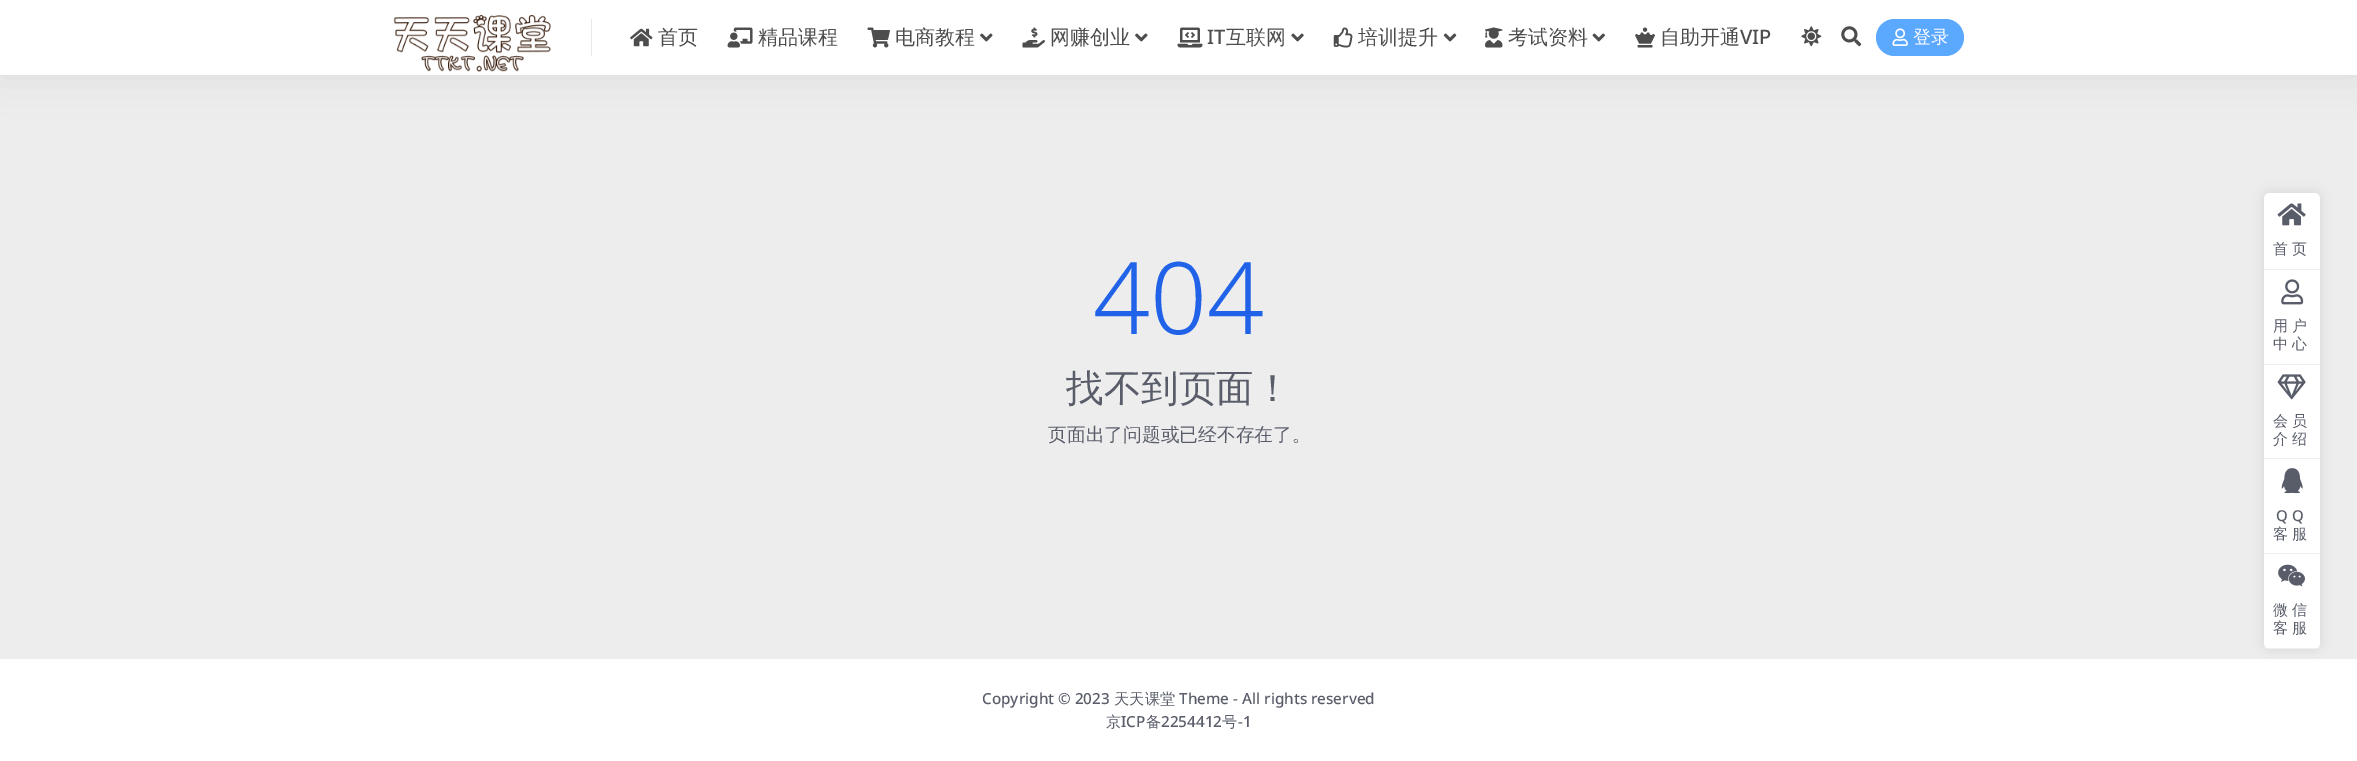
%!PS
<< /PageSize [2357 761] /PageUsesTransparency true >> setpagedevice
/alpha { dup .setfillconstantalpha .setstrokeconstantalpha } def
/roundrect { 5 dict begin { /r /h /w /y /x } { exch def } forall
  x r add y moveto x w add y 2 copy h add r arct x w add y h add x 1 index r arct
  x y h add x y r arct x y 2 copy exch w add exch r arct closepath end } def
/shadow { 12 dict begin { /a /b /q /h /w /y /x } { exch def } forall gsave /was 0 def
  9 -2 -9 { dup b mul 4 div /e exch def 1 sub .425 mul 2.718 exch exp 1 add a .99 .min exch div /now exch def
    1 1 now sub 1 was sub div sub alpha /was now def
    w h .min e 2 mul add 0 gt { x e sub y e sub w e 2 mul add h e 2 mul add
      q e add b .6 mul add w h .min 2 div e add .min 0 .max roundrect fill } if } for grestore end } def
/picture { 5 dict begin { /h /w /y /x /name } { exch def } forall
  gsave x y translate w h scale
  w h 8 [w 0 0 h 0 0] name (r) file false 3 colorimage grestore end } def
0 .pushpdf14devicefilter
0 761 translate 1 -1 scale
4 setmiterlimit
0.929 setgray
0 0 2357 761 rectfill
0 setgray
0 0 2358 75 0 19 0.07 shadow
1 setgray
0 0 2357 75 rectfill
(img1.rgb) 393 15 158 57 picture
0.91 0.91 0.914 setrgbcolor
591 19 1 37 rectfill
(img2.rgb) 630 28 23 19 picture
/WenQuanYiZenHei-Medium [20 0 0 -20 0 0] selectfont
0.302 setgray
658 44 moveto (首页) show
(img3.rgb) 727 27 26 21 picture
758 44 moveto (精品课程) show
(img4.rgb) 867 27 23 21 picture
895 44 moveto (电商教程) show
(img5.rgb) 980 33 13 9 picture
(img6.rgb) 1022 27 23 21 picture
1050 44 moveto (网赚创业) show
(img5.rgb) 1135 33 13 9 picture
(img7.rgb) 1177 27 26 21 picture
/NotoSans-Medium [20 0 0 -20 0 0] selectfont
1207 44 moveto (IT) show
/WenQuanYiZenHei-Medium [20 0 0 -20 0 0] selectfont
1226 44 moveto (互联网) show
(img8.rgb) 1291 33 13 9 picture
(img9.rgb) 1333 27 20 21 picture
1358 44 moveto (培训提升) show
(img10.rgb) 1443 33 14 9 picture
(img11.rgb) 1485 27 18 21 picture
1508 44 moveto (考试资料) show
(img12.rgb) 1592 33 13 9 picture
(img13.rgb) 1635 27 20 21 picture
1660 44 moveto (自助开通) show
/NotoSans-Medium [20 0 0 -20 0 0] selectfont
1740 44 moveto (VIP) show
(img14.rgb) 1801 26 21 21 picture
(img15.rgb) 1841 26 21 21 picture
0.357 0.659 1 setrgbcolor
1876 19 88 37 18.5 roundrect fill
(img16.rgb) 1892 28 16 18 picture
/WenQuanYiZenHei-Medium [18 0 0 -18 0 0] selectfont
1 setgray
1913 43 moveto (登录) show
/NotoSans-Light [100 0 0 -100 0 0] selectfont
0.129 0.388 0.91 setrgbcolor
1093 334 moveto (404) show
/WenQuanYiZenHei-Medium [37.5 0 0 -37.5 0 0] selectfont
0.349 0.365 0.412 setrgbcolor
1066 401 moveto (找不到页面！) show
/WenQuanYiZenHei-Medium [18.75 0 0 -18.75 0 0] selectfont
1048 441 moveto (页面出了问题或已经不存在了。) show
1 setgray
0 659 2357 102 rectfill
0 setgray
2264 193 56 456 6 6 0.1 shadow
1 setgray
newpath 2270 193 moveto 2314 193 lineto 2317.5 193 2320 195.5 2320 199 curveto 2320 270 lineto 2264 270 lineto 2264 199 lineto 2264 195.5 2266.5 193 2270 193 curveto closepath fill
0.933 setgray
2264 269 56 1 rectfill
(img17.rgb) 2277 203 29 23 picture
/WenQuanYiZenHei-Medium [15 0 0 -15 0 0] selectfont
0.349 0.365 0.412 setrgbcolor
2273 254 moveto 4 0 (首页) ashow
1 setgray
2264 270 56 94 rectfill
0.933 setgray
2264 364 56 1 rectfill
(img18.rgb) 2281 279 23 26 picture
0.349 0.365 0.412 setrgbcolor
2273 331 moveto 4 0 (用户) ashow
2273 349 moveto 4 0 (中心) ashow
1 setgray
2264 365 56 93 rectfill
0.933 setgray
2264 458 56 1 rectfill
(img19.rgb) 2277 374 29 26 picture
0.349 0.365 0.412 setrgbcolor
2273 426 moveto 4 0 (会员) ashow
2273 444 moveto 4 0 (介绍) ashow
1 setgray
2264 459 56 94 rectfill
0.933 setgray
2264 553 56 1 rectfill
(img20.rgb) 2281 468 22 26 picture
/NotoSans-Medium [15 0 0 -15 0 0] selectfont
0.349 0.365 0.412 setrgbcolor
2276 521 moveto 4 0 (QQ) ashow
/WenQuanYiZenHei-Medium [15 0 0 -15 0 0] selectfont
2273 539 moveto 4 0 (客服) ashow
1 setgray
newpath 2264 554 moveto 2320 554 lineto 2320 643 lineto 2320 646.5 2317.5 649 2314 649 curveto 2270 649 lineto 2266.5 649 2264 646.5 2264 643 curveto closepath fill
gsave
2264 193 56 456 6 roundrect clip newpath
0.933 setgray
2264 648 56 1 rectfill
grestore
(img21.rgb) 2278 564 27 23 picture
0.349 0.365 0.412 setrgbcolor
2273 615 moveto 4 0 (微信) ashow
2273 633 moveto 4 0 (客服) ashow
/NotoSans-Medium [15.25 0 0 -15.25 0 0] selectfont
982 704 moveto (Copyright © 2023) show
/WenQuanYiZenHei-Medium [15.25 0 0 -15.25 0 0] selectfont
1114 704 moveto (天天课堂) show
/NotoSans-Medium [15.25 0 0 -15.25 0 0] selectfont
1179 704 moveto (Theme - All rights reserved) show
/WenQuanYiZenHei-Medium [15.25 0 0 -15.25 0 0] selectfont
1106 727 moveto (京) show
/NotoSans-Medium [15.25 0 0 -15.25 0 0] selectfont
1121 727 moveto (ICP) show
/WenQuanYiZenHei-Medium [15.25 0 0 -15.25 0 0] selectfont
1146 727 moveto (备) show
/NotoSans-Medium [15.25 0 0 -15.25 0 0] selectfont
1161 727 moveto (2254412) show
/WenQuanYiZenHei-Medium [15.25 0 0 -15.25 0 0] selectfont
1222 727 moveto (号) show
/NotoSans-Medium [15.25 0 0 -15.25 0 0] selectfont
1238 727 moveto (-1) show
.poppdf14devicefilter showpage
